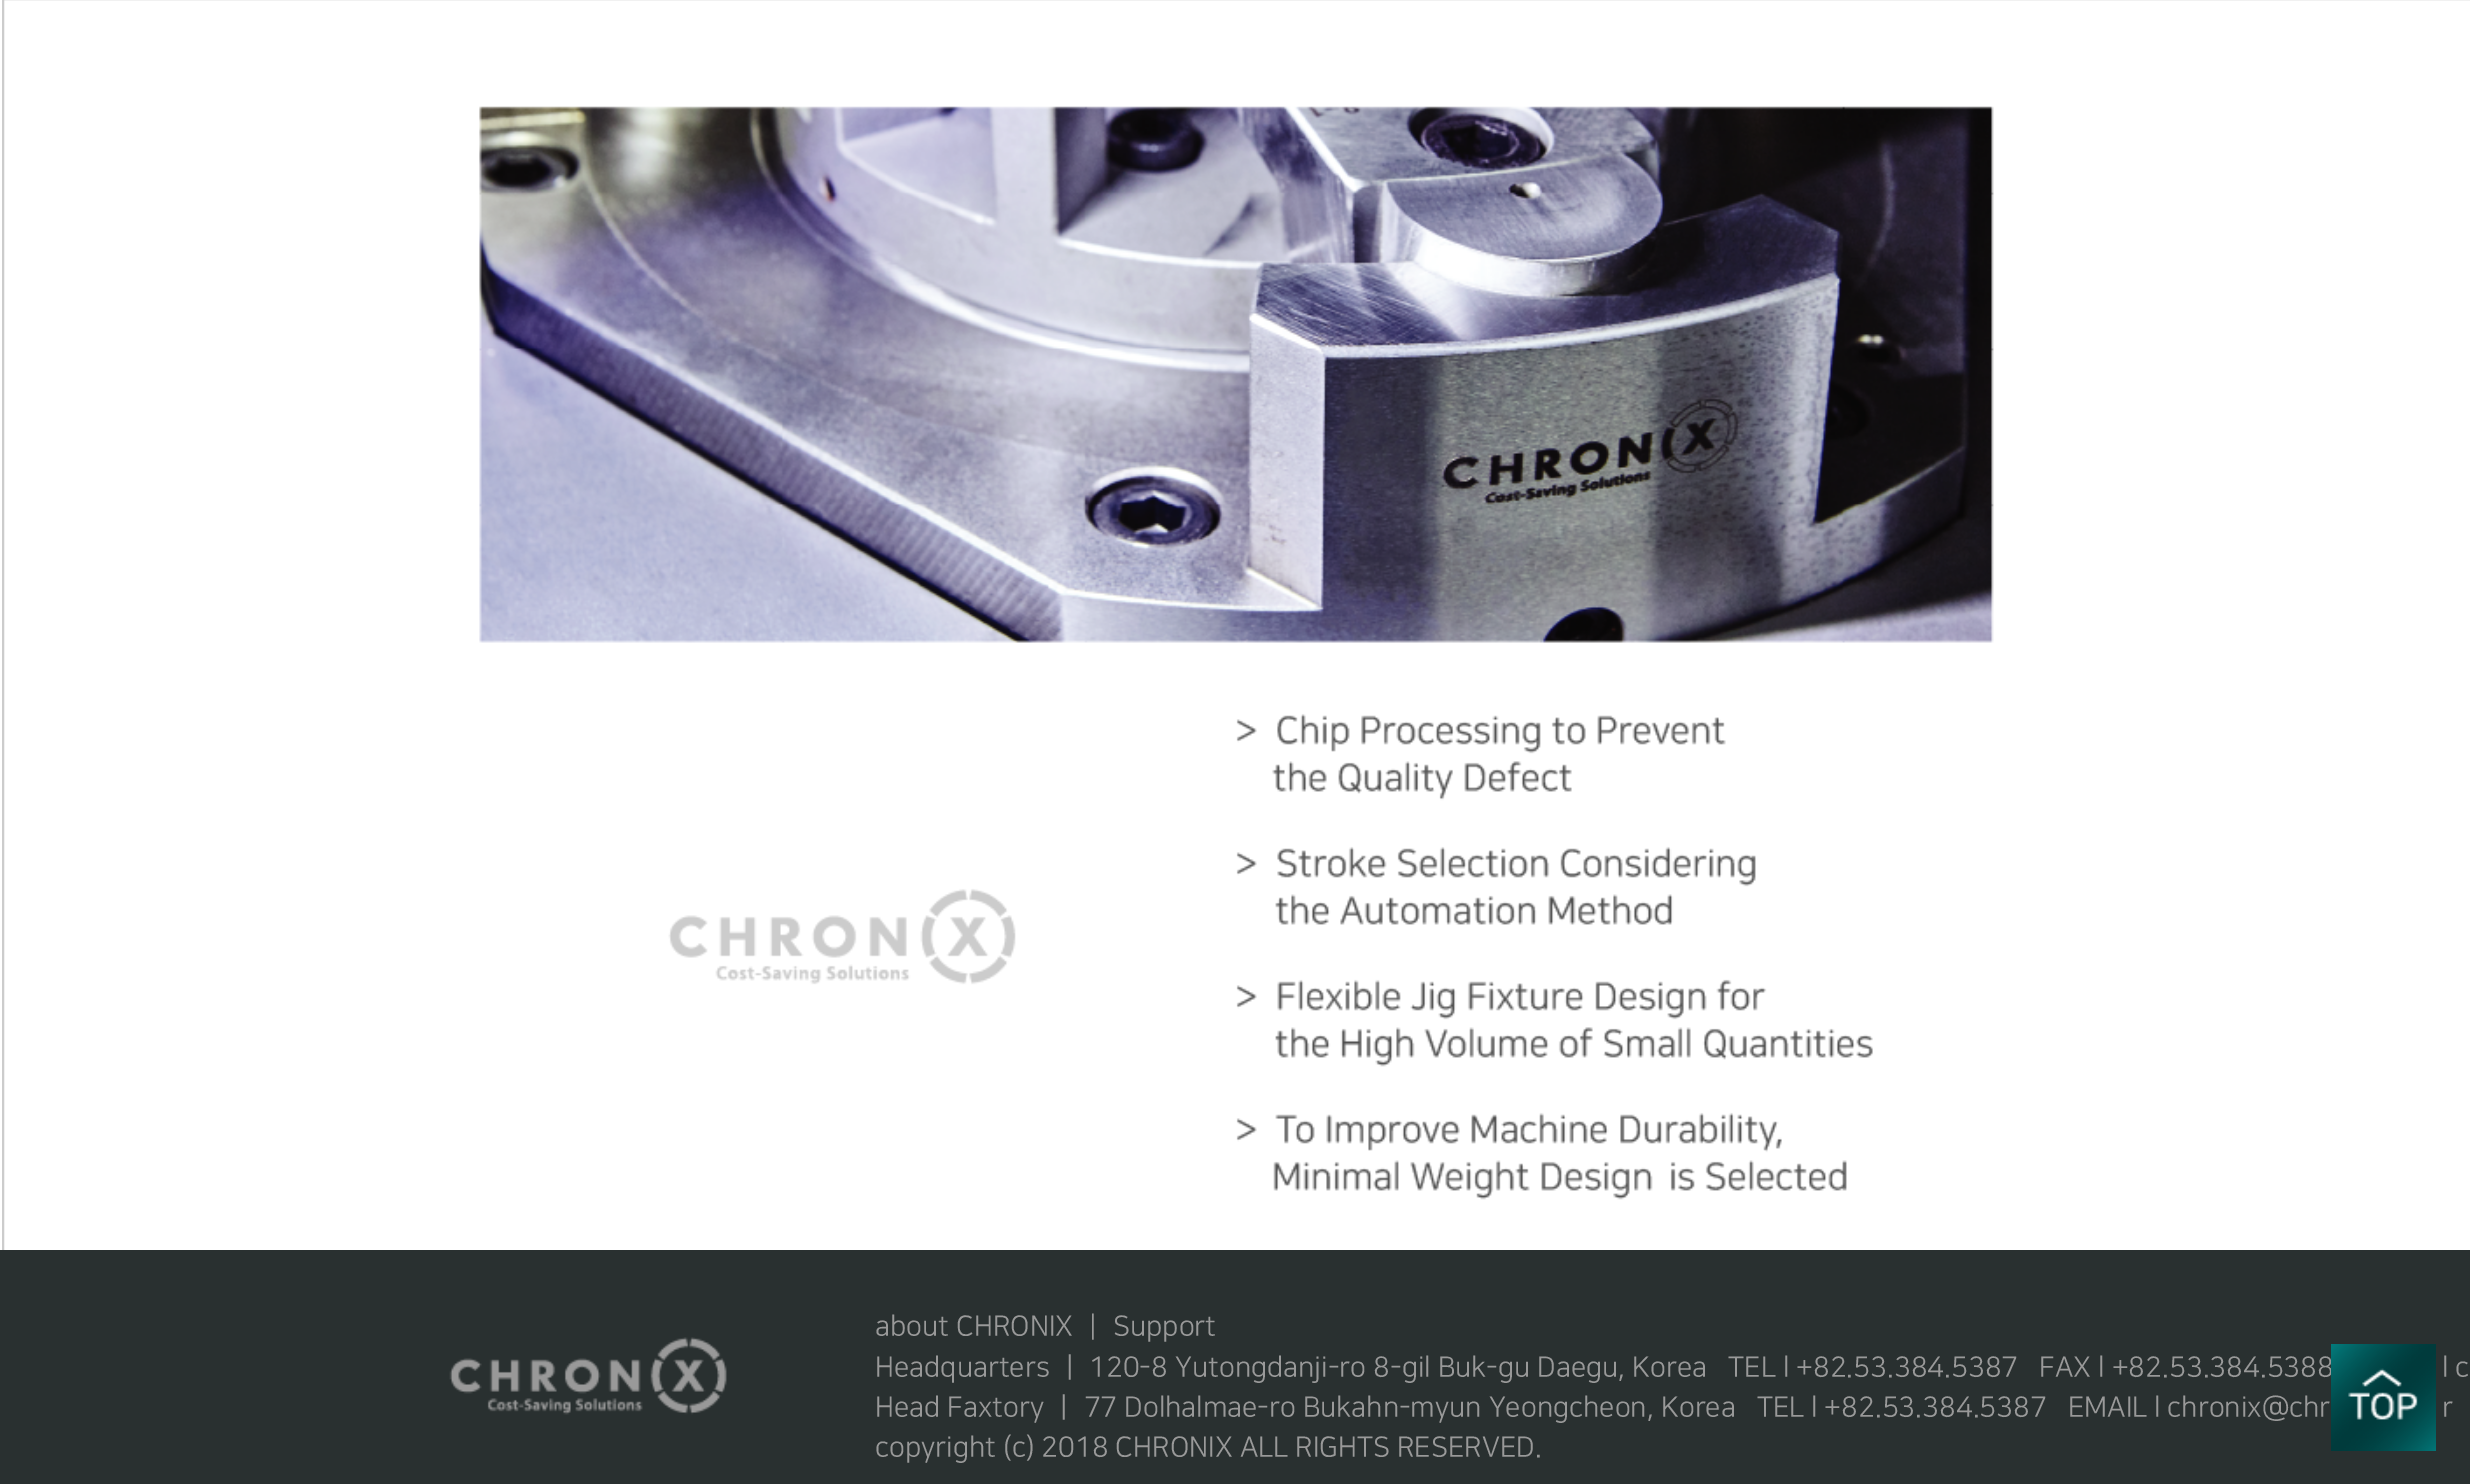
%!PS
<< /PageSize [2470 1484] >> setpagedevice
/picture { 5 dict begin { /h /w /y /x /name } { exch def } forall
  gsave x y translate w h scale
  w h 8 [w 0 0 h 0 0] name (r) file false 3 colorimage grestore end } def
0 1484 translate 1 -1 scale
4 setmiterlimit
1 setgray
0 0 2470 1484 rectfill
0.8 setgray
2 setlinewidth
3 -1 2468 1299 rectstroke
(img1.rgb) 479 106 1515 1094 picture
0.161 0.188 0.188 setrgbcolor
0 1250 2470 234 rectfill
(img2.rgb) 449 1337 278 78 picture
/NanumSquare-Regular [28 0 0 -28 0 0] selectfont
0.6 setgray
875 1335 moveto (about CHRONIX) show
1089 1335 moveto (|) show
1113 1335 moveto (Support) show
875 1376 moveto (Headquarters ㅣ 120-8 Yutongdanji-ro 8-gil Buk-gu Daegu, Korea   TEL l +82.53.384.5387   FAX l +82.53.384.5388) show
2442 1376 moveto (l c) show
875 1416 moveto (Head Faxtory ㅣ 77 Dolhalmae-ro Bukahn-myun Yeongcheon, Korea   TEL l +82.53.384.5387   EMAIL l chronix@chr) show
2442 1416 moveto (r) show
875 1456 moveto (copyright \(c\) 2018 CHRONIX ALL RIGHTS RESERVED.) show
(img3.rgb) 2331 1344 105 107 picture
showpage
